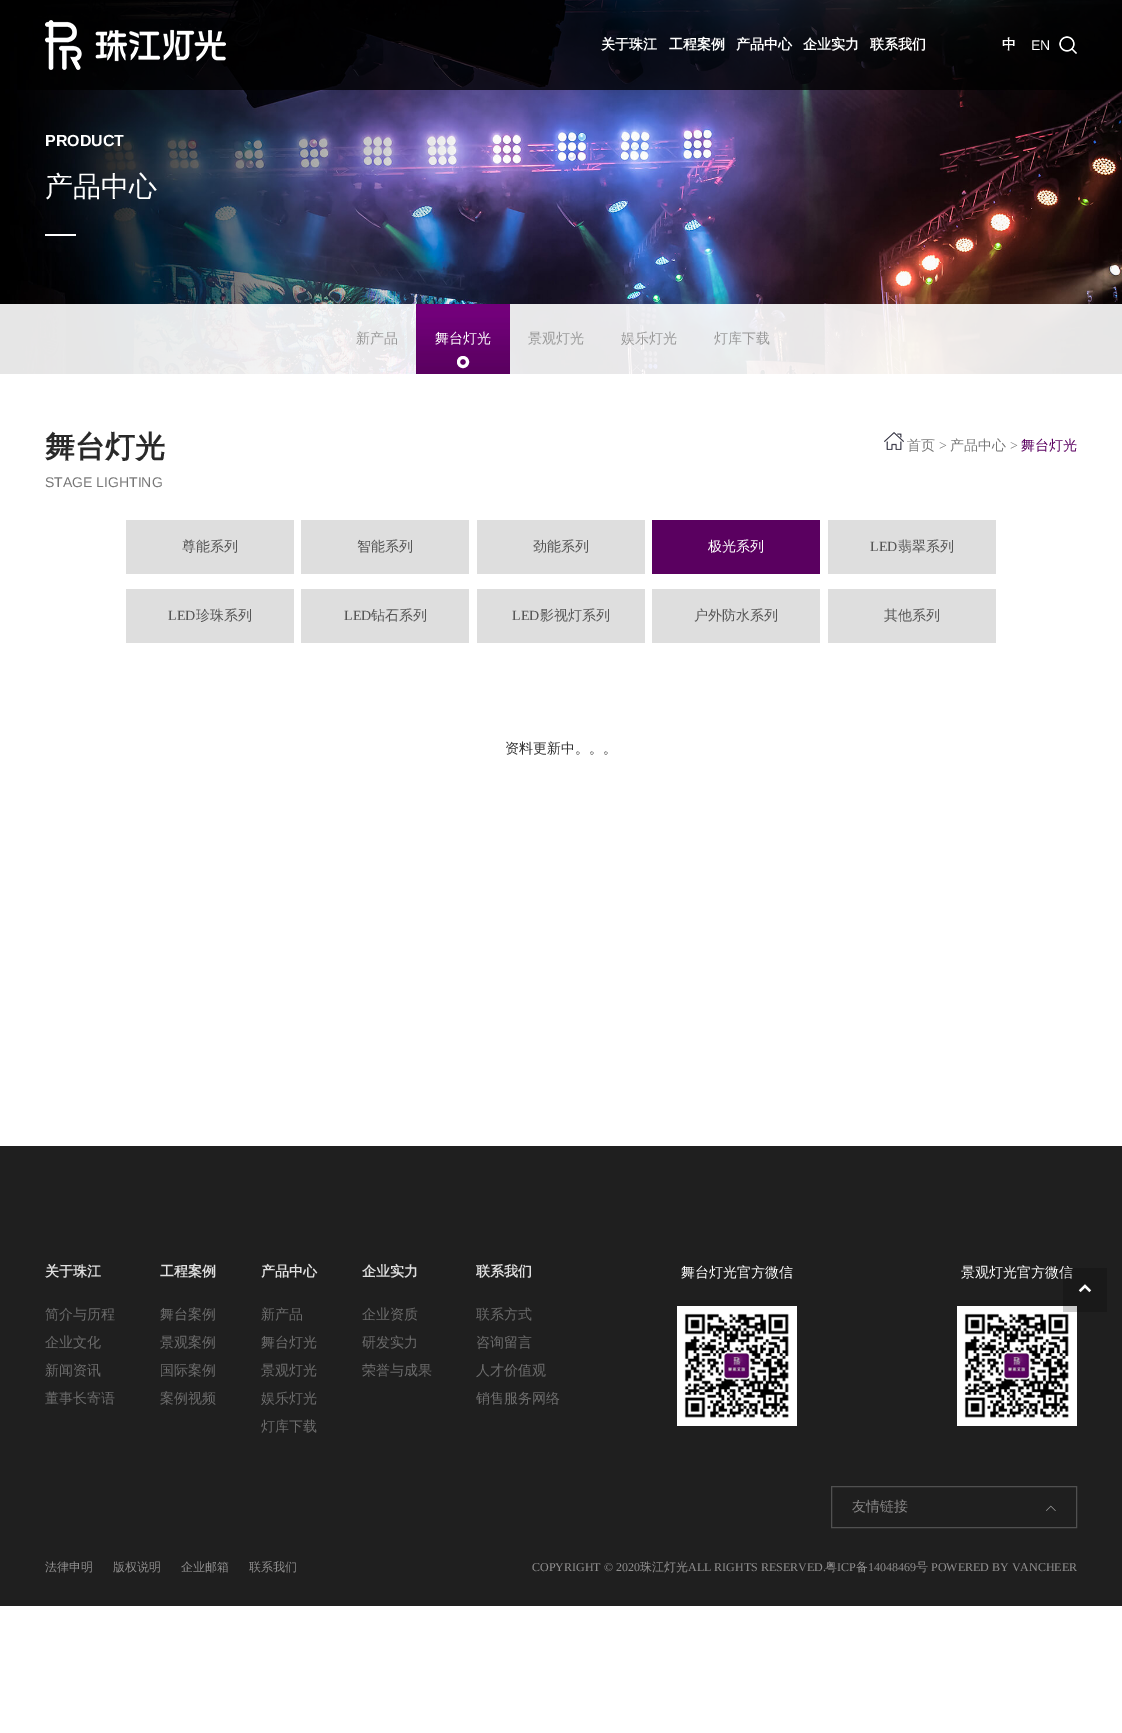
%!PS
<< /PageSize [1122 1733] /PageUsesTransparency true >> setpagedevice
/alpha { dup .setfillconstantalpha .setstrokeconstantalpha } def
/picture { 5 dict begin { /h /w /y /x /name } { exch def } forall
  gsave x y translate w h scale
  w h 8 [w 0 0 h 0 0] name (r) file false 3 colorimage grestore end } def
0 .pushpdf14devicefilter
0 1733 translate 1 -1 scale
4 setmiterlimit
1 setgray
0 0 1122 1733 rectfill
(img3.rgb) 0 0 1122 374 picture
0.8 alpha
0 setgray
17 0 1105 90 rectfill
1 alpha
(img1.rgb) 45 20 181 50 picture
/WenQuanYiZenHei-Bold [14 0 0 -14 0 0] selectfont
1 setgray
601 49 moveto (关于珠江) show
669 49 moveto (工程案例) show
736 49 moveto (产品中心) show
803 49 moveto (企业实力) show
870 49 moveto (联系我们) show
1002 49 moveto (中) show
/LiberationSans-Regular [14 0 0 -14 0 0] selectfont
1031 50 moveto (EN) show
(img2.rgb) 1059 36 18 18 picture
/LiberationSans-Bold [16 0 0 -16 0 0] selectfont
45 146 moveto (PRODUCT) show
/WenQuanYiZenHei-Medium [28 0 0 -28 0 0] selectfont
45 196 moveto (产品中心) show
45 234 31 2 rectfill
0.9 alpha
0 304 1122 70 rectfill
/WenQuanYiZenHei-Medium [14 0 0 -14 0 0] selectfont
1 alpha
0.6 setgray
356 343 moveto (新产品) show
(img4.rgb) 416 304 94 70 picture
1 setgray
435 343 moveto (舞台灯光) show
3 setlinewidth
newpath 463 362 4.5 0 360 arc closepath stroke
0.6 setgray
528 343 moveto (景观灯光) show
621 343 moveto (娱乐灯光) show
714 343 moveto (灯库下载) show
/WenQuanYiZenHei-Bold [30 0 0 -30 0 0] selectfont
0.161 setgray
45 457 moveto (舞台灯光) show
/LiberationSans-Regular [14 0 0 -14 0 0] selectfont
0.463 setgray
45 487 moveto (STAGE LIGHTING) show
(img5.rgb) 884 432 20 18 picture
/WenQuanYiZenHei-Medium [14 0 0 -14 0 0] selectfont
907 450 moveto (首页) show
/LiberationSerif-Regular [14 0 0 -14 0 0] selectfont
939 450 moveto (>) show
/WenQuanYiZenHei-Medium [14 0 0 -14 0 0] selectfont
950 450 moveto (产品中心) show
/LiberationSerif-Regular [14 0 0 -14 0 0] selectfont
1010 450 moveto (>) show
/WenQuanYiZenHei-Medium [14 0 0 -14 0 0] selectfont
0.353 0 0.376 setrgbcolor
1021 450 moveto (舞台灯光) show
0.871 setgray
126 520 168 54 rectfill
0.337 setgray
182 551 moveto (尊能系列) show
0.871 setgray
301 520 168 54 rectfill
0.337 setgray
357 551 moveto (智能系列) show
0.871 setgray
477 520 168 54 rectfill
0.337 setgray
533 551 moveto (劲能系列) show
0.353 0 0.376 setrgbcolor
652 520 168 54 rectfill
1 setgray
708 551 moveto (极光系列) show
0.871 setgray
828 520 168 54 rectfill
/LiberationSerif-Regular [14 0 0 -14 0 0] selectfont
0.337 setgray
870 551 moveto (LED) show
/WenQuanYiZenHei-Medium [14 0 0 -14 0 0] selectfont
898 551 moveto (翡翠系列) show
0.871 setgray
126 589 168 54 rectfill
/LiberationSerif-Regular [14 0 0 -14 0 0] selectfont
0.337 setgray
168 620 moveto (LED) show
/WenQuanYiZenHei-Medium [14 0 0 -14 0 0] selectfont
196 620 moveto (珍珠系列) show
0.871 setgray
301 589 168 54 rectfill
/LiberationSerif-Regular [14 0 0 -14 0 0] selectfont
0.337 setgray
344 620 moveto (LED) show
/WenQuanYiZenHei-Medium [14 0 0 -14 0 0] selectfont
371 620 moveto (钻石系列) show
0.871 setgray
477 589 168 54 rectfill
/LiberationSerif-Regular [14 0 0 -14 0 0] selectfont
0.337 setgray
512 620 moveto (LED) show
/WenQuanYiZenHei-Medium [14 0 0 -14 0 0] selectfont
540 620 moveto (影视灯系列) show
0.871 setgray
652 589 168 54 rectfill
0.337 setgray
694 620 moveto (户外防水系列) show
0.871 setgray
828 589 168 54 rectfill
0.337 setgray
884 620 moveto (其他系列) show
0.2 setgray
505 753 moveto (资料更新中。。。) show
0.122 setgray
0 1146 1122 460 rectfill
/WenQuanYiZenHei-Bold [14 0 0 -14 0 0] selectfont
0.875 setgray
45 1276 moveto (关于珠江) show
/WenQuanYiZenHei-Medium [14 0 0 -14 0 0] selectfont
0.42 setgray
45 1319 moveto (简介与历程) show
45 1347 moveto (企业文化) show
45 1375 moveto (新闻资讯) show
45 1403 moveto (董事长寄语) show
/WenQuanYiZenHei-Bold [14 0 0 -14 0 0] selectfont
0.875 setgray
160 1276 moveto (工程案例) show
/WenQuanYiZenHei-Medium [14 0 0 -14 0 0] selectfont
0.42 setgray
160 1319 moveto (舞台案例) show
160 1347 moveto (景观案例) show
160 1375 moveto (国际案例) show
160 1403 moveto (案例视频) show
/WenQuanYiZenHei-Bold [14 0 0 -14 0 0] selectfont
0.875 setgray
261 1276 moveto (产品中心) show
/WenQuanYiZenHei-Medium [14 0 0 -14 0 0] selectfont
0.42 setgray
261 1319 moveto (新产品) show
261 1347 moveto (舞台灯光) show
261 1375 moveto (景观灯光) show
261 1403 moveto (娱乐灯光) show
261 1431 moveto (灯库下载) show
/WenQuanYiZenHei-Bold [14 0 0 -14 0 0] selectfont
0.875 setgray
362 1276 moveto (企业实力) show
/WenQuanYiZenHei-Medium [14 0 0 -14 0 0] selectfont
0.42 setgray
362 1319 moveto (企业资质) show
362 1347 moveto (研发实力) show
362 1375 moveto (荣誉与成果) show
/WenQuanYiZenHei-Bold [14 0 0 -14 0 0] selectfont
0.875 setgray
476 1276 moveto (联系我们) show
/WenQuanYiZenHei-Medium [14 0 0 -14 0 0] selectfont
0.42 setgray
476 1319 moveto (联系方式) show
476 1347 moveto (咨询留言) show
476 1375 moveto (人才价值观) show
476 1403 moveto (销售服务网络) show
1 setgray
681 1277 moveto (舞台灯光官方微信) show
(img6.rgb) 677 1306 120 120 picture
961 1277 moveto (景观灯光官方微信) show
(img7.rgb) 957 1306 120 120 picture
0.314 setgray
1 setlinewidth
831.5 1486.5 245 41 rectstroke
0.525 0.522 0.522 setrgbcolor
852 1511 moveto (友情链接) show
(img8.rgb) 1046 1505 10 6 picture
0.2 alpha
0 setgray
1063 1268 44 44 rectfill
1 alpha
(img9.rgb) 1078 1284 14 9 picture
/WenQuanYiZenHei-Medium [12 0 0 -12 0 0] selectfont
0.561 0.557 0.557 setrgbcolor
45 1571 moveto (法律申明) show
113 1571 moveto (版权说明) show
181 1571 moveto (企业邮箱) show
249 1571 moveto (联系我们) show
/LiberationSerif-Regular [12 0 0 -12 0 0] selectfont
532 1571 moveto (COPYRIGHT © 2020) show
/WenQuanYiZenHei-Medium [12 0 0 -12 0 0] selectfont
640 1571 moveto (珠江灯光) show
/LiberationSerif-Regular [12 0 0 -12 0 0] selectfont
688 1571 moveto (ALL RIGHTS RESERVED.) show
/WenQuanYiZenHei-Medium [12 0 0 -12 0 0] selectfont
825 1571 moveto (粤) show
/LiberationSerif-Regular [12 0 0 -12 0 0] selectfont
837 1571 moveto (ICP) show
/WenQuanYiZenHei-Medium [12 0 0 -12 0 0] selectfont
856 1571 moveto (备) show
/LiberationSerif-Regular [12 0 0 -12 0 0] selectfont
868 1571 moveto (14048469) show
/WenQuanYiZenHei-Medium [12 0 0 -12 0 0] selectfont
916 1571 moveto (号) show
/LiberationSerif-Regular [12 0 0 -12 0 0] selectfont
931 1571 moveto (POWERED BY VANCHEER) show
.poppdf14devicefilter showpage
